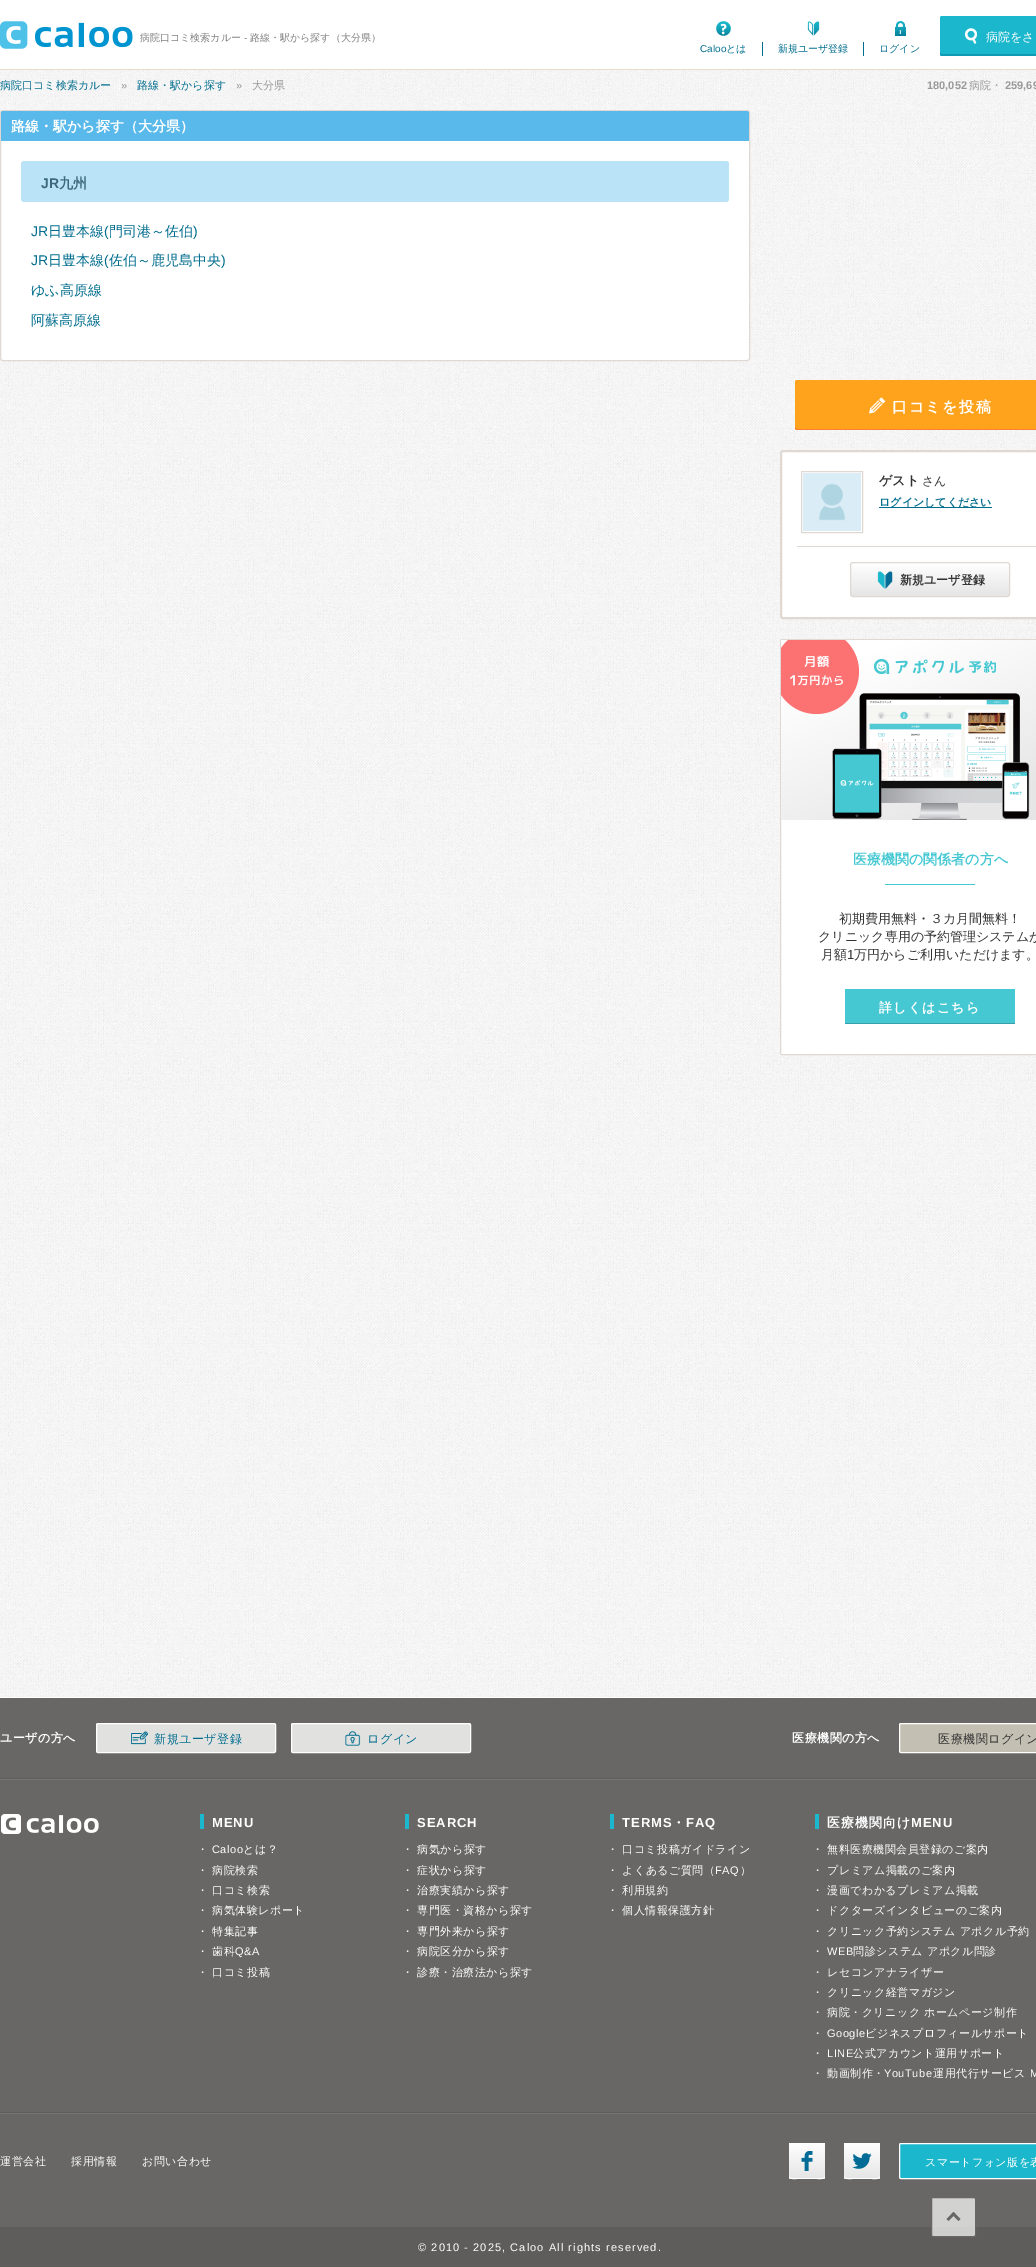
%!PS
<< /PageSize [1036 2267] /PageUsesTransparency true >> setpagedevice
/alpha { dup .setfillconstantalpha .setstrokeconstantalpha } def
/roundrect { 5 dict begin { /r /h /w /y /x } { exch def } forall
  x r add y moveto x w add y 2 copy h add r arct x w add y h add x 1 index r arct
  x y h add x y r arct x y 2 copy exch w add exch r arct closepath end } def
/picture { 5 dict begin { /h /w /y /x /name } { exch def } forall
  gsave x y translate w h scale
  w h 8 [w 0 0 h 0 0] name (r) file false 3 colorimage grestore end } def
0 .pushpdf14devicefilter
0 2267 translate 1 -1 scale
4 setmiterlimit
1 setgray
0 0 1036 2267 rectfill
(img1.rgb) 0 70 1036 1627 picture
0.91 0.855 0.804 setrgbcolor
0 69 1036 1 rectfill
(img2.rgb) 0 21 133 28 picture
/WenQuanYiZenHei-Medium [10 0 0 -10 0 0] selectfont
0.502 setgray
140 41 moveto (病院口コミ検索カルー) show
/LiberationSans-Regular [10 0 0 -10 0 0] selectfont
244 41 moveto (-) show
/WenQuanYiZenHei-Medium [10 0 0 -10 0 0] selectfont
250 41 moveto (路線・駅から探す（大分県）) show
0.106 0.718 0.8 setrgbcolor
940 16 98 40 2 roundrect fill
0.063 0.608 0.698 setrgbcolor
newpath 940 52 moveto 940 54 lineto 940 55 941 56 942 56 curveto 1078 56 lineto 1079 56 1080 55 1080 54 curveto 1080 52 lineto 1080 53 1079 54 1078 54 curveto 942 54 lineto 941 54 940 53 940 52 curveto closepath fill
(img3.rgb) 965 28 12 16 picture
/WenQuanYiZenHei-Medium [12 0 0 -12 0 0] selectfont
1 setgray
986 41 moveto (病院をさ) show
(img4.rgb) 716 21 15 15 picture
/LiberationSans-Regular [10 0 0 -10 0 0] selectfont
0 0.427 0.557 setrgbcolor
700 52 moveto (Caloo) show
/WenQuanYiZenHei-Medium [10 0 0 -10 0 0] selectfont
726 52 moveto (とは) show
762 42 1 14 rectfill
(img5.rgb) 807 21 13 15 picture
778 52 moveto (新規ユーザ登録) show
863 42 1 14 rectfill
(img6.rgb) 895 21 11 15 picture
879 52 moveto (ログイン) show
/WenQuanYiZenHei-Medium [11 0 0 -11 0 0] selectfont
0 89 moveto (病院口コミ検索カルー) show
/LiberationSans-Regular [11 0 0 -11 0 0] selectfont
0.6 setgray
121 89 moveto (») show
/WenQuanYiZenHei-Medium [11 0 0 -11 0 0] selectfont
0 0.427 0.557 setrgbcolor
137 89 moveto (路線・駅から探す) show
/LiberationSans-Regular [11 0 0 -11 0 0] selectfont
0.6 setgray
236 89 moveto (») show
/WenQuanYiZenHei-Medium [11 0 0 -11 0 0] selectfont
252 89 moveto (大分県) show
/LiberationSans-Bold [11 0 0 -11 0 0] selectfont
927 89 moveto (180,052) show
/WenQuanYiZenHei-Medium [11 0 0 -11 0 0] selectfont
969 89 moveto (病院・) show
/LiberationSans-Bold [11 0 0 -11 0 0] selectfont
1005 89 moveto (259,69) show
1 setgray
0.5 110.5 749 250 2.5 roundrect gsave fill grestore
0.878 0.847 0.827 setrgbcolor
stroke
0.349 0.725 0.918 setrgbcolor
newpath 3 111 moveto 747 111 lineto 748 111 749 112 749 113 curveto 749 141 lineto 1 141 lineto 1 113 lineto 1 112 2 111 3 111 curveto closepath fill
/WenQuanYiZenHei-Bold [14 0 0 -14 0 0] selectfont
1 setgray
11 131 moveto (路線・駅から探す（大分県）) show
0.729 0.89 0.969 setrgbcolor
21 161 708 41 3 roundrect fill
/LiberationSans-Bold [14 0 0 -14 0 0] selectfont
0.239 0.412 0.498 setrgbcolor
41 188 moveto (JR) show
/WenQuanYiZenHei-Bold [14 0 0 -14 0 0] selectfont
59 188 moveto (九州) show
/LiberationSans-Regular [14 0 0 -14 0 0] selectfont
0 0.427 0.557 setrgbcolor
31 236 moveto (JR) show
/WenQuanYiZenHei-Medium [14 0 0 -14 0 0] selectfont
48 236 moveto (日豊本線) show
/LiberationSans-Regular [14 0 0 -14 0 0] selectfont
104 236 moveto (\() show
/WenQuanYiZenHei-Medium [14 0 0 -14 0 0] selectfont
109 236 moveto (門司港～佐伯) show
/LiberationSans-Regular [14 0 0 -14 0 0] selectfont
193 236 moveto (\)) show
31 265 moveto (JR) show
/WenQuanYiZenHei-Medium [14 0 0 -14 0 0] selectfont
48 265 moveto (日豊本線) show
/LiberationSans-Regular [14 0 0 -14 0 0] selectfont
104 265 moveto (\() show
/WenQuanYiZenHei-Medium [14 0 0 -14 0 0] selectfont
109 265 moveto (佐伯～鹿児島中央) show
/LiberationSans-Regular [14 0 0 -14 0 0] selectfont
221 265 moveto (\)) show
/WenQuanYiZenHei-Medium [14 0 0 -14 0 0] selectfont
31 295 moveto (ゆふ高原線) show
31 325 moveto (阿蘇高原線) show
1 0.639 0.114 setrgbcolor
795 380 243 50 2 roundrect fill
1 0.486 0.2 setrgbcolor
newpath 795 427 moveto 795 428 795 430 797 430 curveto 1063 430 lineto 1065 429 lineto 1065 427 lineto 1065 428 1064 429 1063 429 curveto 797 429 lineto 796 429 795 428 795 427 curveto closepath fill
(img7.rgb) 869 397 17 17 picture
/WenQuanYiZenHei-Bold [15 0 0 -15 0 0] selectfont
1 setgray
892 412 moveto 1.5 0 (口コミを投稿) ashow
781 451 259 167 2 roundrect gsave fill grestore
0.878 0.847 0.827 setrgbcolor
2 setlinewidth
stroke
797 546 239 1 rectfill
1 setlinewidth
801.5 471.5 61 61 rectstroke
(img8.rgb) 803 473 58 58 picture
/WenQuanYiZenHei-Bold [13 0 0 -13 0 0] selectfont
0.2 setgray
879 485 moveto (ゲスト) show
/WenQuanYiZenHei-Medium [12 0 0 -12 0 0] selectfont
922 485 moveto (さん) show
0 0.427 0.557 setrgbcolor
879 507 113 1 rectfill
/WenQuanYiZenHei-Bold [11 0 0 -11 0 0] selectfont
879 506 moveto (ログインしてください) show
gsave
850 562 160 35 3 roundrect clip newpath
gsave newpath 850 563 moveto 1010 563 lineto 1010 596 lineto 850 596 lineto closepath clip newpath
<< /ShadingType 2 /ColorSpace /DeviceRGB /Coords [930 563 930 596] /Extend [true true] /Function << /FunctionType 2 /Domain [0 1] /C0 [1 1 1] /C1 [0.898 0.898 0.898] /N 1 >> >> shfill grestore
grestore
0.878 0.847 0.827 setrgbcolor
850.5 562.5 159 34 2.5 roundrect stroke
(img9.rgb) 877 571 16 18 picture
/WenQuanYiZenHei-Bold [12 0 0 -12 0 0] selectfont
0.2 setgray
900 584 moveto (新規ユーザ登録) show
1 setgray
780.5 639.5 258 415 1.5 roundrect gsave fill grestore
0.878 0.847 0.827 setrgbcolor
stroke
(img10.rgb) 781 640 255 180 picture
/WenQuanYiZenHei-Bold [14 0 0 -14 0 0] selectfont
0.275 0.784 0.824 setrgbcolor
853 864 moveto (医療機関の関係者の方へ) show
885 884 90 1 rectfill
/WenQuanYiZenHei-Medium [13 0 0 -13 0 0] selectfont
0.2 setgray
839 923 moveto (初期費用無料・３カ月間無料！) show
818 941 moveto (クリニック専用の予約管理システムが) show
821 959 moveto (月額) show
/LiberationSans-Regular [13 0 0 -13 0 0] selectfont
847 959 moveto (1) show
/WenQuanYiZenHei-Medium [13 0 0 -13 0 0] selectfont
854 959 moveto (万円からご利用いただけます。) show
0.275 0.784 0.824 setrgbcolor
845 989 170 34 rectfill
0.22 0.627 0.659 setrgbcolor
845 1023 170 1 rectfill
/WenQuanYiZenHei-Bold [13 0 0 -13 0 0] selectfont
1 setgray
879 1012 moveto 1.25 0 (詳しくはこちら) ashow
0.408 0.404 0.4 setrgbcolor
0 1698 1036 529 rectfill
0.467 0.463 0.459 setrgbcolor
0 1779 1036 1 rectfill
0.369 0.365 0.361 setrgbcolor
0 1778 1036 1 rectfill
/WenQuanYiZenHei-Bold [12 0 0 -12 0 0] selectfont
1 setgray
0 1742 moveto 0.5 0 (ユーザの方へ) ashow
0.882 0.882 0.878 setrgbcolor
96.5 1723.5 179 29 1.5 roundrect gsave fill grestore
1 setgray
stroke
(img11.rgb) 131 1731 17 14 picture
/WenQuanYiZenHei-Medium [12 0 0 -12 0 0] selectfont
0 0.427 0.557 setrgbcolor
154 1743 moveto 0.5 0 (新規ユーザ登録) ashow
0.882 0.882 0.878 setrgbcolor
291.5 1723.5 179 29 1.5 roundrect gsave fill grestore
1 setgray
stroke
(img12.rgb) 345 1731 16 15 picture
0 0.427 0.557 setrgbcolor
367 1743 moveto 0.5 0 (ログイン) ashow
/WenQuanYiZenHei-Bold [12 0 0 -12 0 0] selectfont
1 setgray
792 1742 moveto 0.5 0 (医療機関の方へ) ashow
0.769 0.749 0.702 setrgbcolor
899.5 1723.5 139 29 1.5 roundrect gsave fill grestore
1 setgray
stroke
/WenQuanYiZenHei-Medium [12 0 0 -12 0 0] selectfont
0.2 setgray
938 1743 moveto 0.5 0 (医療機関ログイン) ashow
(img13.rgb) 1 1814 98 20 picture
0.106 0.718 0.8 setrgbcolor
200 1814 4 15 rectfill
/LiberationSans-Bold [13 0 0 -13 0 0] selectfont
1 setgray
212 1827 moveto 1 0 (MENU) ashow
/WenQuanYiZenHei-Medium [11 0 0 -11 0 0] selectfont
197 1853 moveto 0.5 0 (・) ashow
/LiberationSans-Regular [11 0 0 -11 0 0] selectfont
212 1853 moveto 0.5 0 (Caloo) ashow
/WenQuanYiZenHei-Medium [11 0 0 -11 0 0] selectfont
243 1853 moveto 0.5 0 (とは？) ashow
197 1874 moveto 0.5 0 (・) ashow
212 1874 moveto 0.5 0 (病院検索) ashow
197 1894 moveto 0.5 0 (・) ashow
212 1894 moveto 0.5 0 (口コミ検索) ashow
197 1914 moveto 0.5 0 (・) ashow
212 1914 moveto 0.5 0 (病気体験レポート) ashow
197 1935 moveto 0.5 0 (・) ashow
212 1935 moveto 0.5 0 (特集記事) ashow
197 1955 moveto 0.5 0 (・) ashow
212 1955 moveto 0.5 0 (歯科) ashow
/LiberationSans-Regular [11 0 0 -11 0 0] selectfont
235 1955 moveto 0.5 0 (Q&A) ashow
/WenQuanYiZenHei-Medium [11 0 0 -11 0 0] selectfont
197 1976 moveto 0.5 0 (・) ashow
212 1976 moveto 0.5 0 (口コミ投稿) ashow
0.106 0.718 0.8 setrgbcolor
405 1814 4 15 rectfill
/LiberationSans-Bold [13 0 0 -13 0 0] selectfont
1 setgray
417 1827 moveto 1 0 (SEARCH) ashow
/WenQuanYiZenHei-Medium [11 0 0 -11 0 0] selectfont
402 1853 moveto 0.5 0 (・) ashow
417 1853 moveto 0.5 0 (病気から探す) ashow
402 1874 moveto 0.5 0 (・) ashow
417 1874 moveto 0.5 0 (症状から探す) ashow
402 1894 moveto 0.5 0 (・) ashow
417 1894 moveto 0.5 0 (治療実績から探す) ashow
402 1914 moveto 0.5 0 (・) ashow
417 1914 moveto 0.5 0 (専門医・資格から探す) ashow
402 1935 moveto 0.5 0 (・) ashow
417 1935 moveto 0.5 0 (専門外来から探す) ashow
402 1955 moveto 0.5 0 (・) ashow
417 1955 moveto 0.5 0 (病院区分から探す) ashow
402 1976 moveto 0.5 0 (・) ashow
417 1976 moveto 0.5 0 (診療・治療法から探す) ashow
0.106 0.718 0.8 setrgbcolor
610 1814 4 15 rectfill
/LiberationSans-Bold [13 0 0 -13 0 0] selectfont
1 setgray
622 1827 moveto 1 0 (TERMS) ashow
/WenQuanYiZenHei-Bold [13 0 0 -13 0 0] selectfont
672 1827 moveto 1 0 (・) ashow
/LiberationSans-Bold [13 0 0 -13 0 0] selectfont
686 1827 moveto 1 0 (FAQ) ashow
/WenQuanYiZenHei-Medium [11 0 0 -11 0 0] selectfont
607 1853 moveto 0.5 0 (・) ashow
622 1853 moveto 0.5 0 (口コミ投稿ガイドライン) ashow
607 1874 moveto 0.5 0 (・) ashow
622 1874 moveto 0.5 0 (よくあるご質問（) ashow
/LiberationSans-Regular [11 0 0 -11 0 0] selectfont
715 1874 moveto 0.5 0 (FAQ) ashow
/WenQuanYiZenHei-Medium [11 0 0 -11 0 0] selectfont
740 1874 moveto 0.5 0 (）) ashow
607 1894 moveto 0.5 0 (・) ashow
622 1894 moveto 0.5 0 (利用規約) ashow
607 1914 moveto 0.5 0 (・) ashow
622 1914 moveto 0.5 0 (個人情報保護方針) ashow
0.106 0.718 0.8 setrgbcolor
815 1814 4 15 rectfill
/WenQuanYiZenHei-Bold [13 0 0 -13 0 0] selectfont
1 setgray
827 1827 moveto 1 0 (医療機関向け) ashow
/LiberationSans-Bold [13 0 0 -13 0 0] selectfont
911 1827 moveto 1 0 (MENU) ashow
/WenQuanYiZenHei-Medium [11 0 0 -11 0 0] selectfont
812 1853 moveto 0.5 0 (・) ashow
827 1853 moveto 0.5 0 (無料医療機関会員登録のご案内) ashow
812 1874 moveto 0.5 0 (・) ashow
827 1874 moveto 0.5 0 (プレミアム掲載のご案内) ashow
812 1894 moveto 0.5 0 (・) ashow
827 1894 moveto 0.5 0 (漫画でわかるプレミアム掲載) ashow
812 1914 moveto 0.5 0 (・) ashow
827 1914 moveto 0.5 0 (ドクターズインタビューのご案内) ashow
812 1935 moveto 0.5 0 (・) ashow
827 1935 moveto 0.5 0 (クリニック予約システム アポクル予約) ashow
812 1955 moveto 0.5 0 (・) ashow
/LiberationSans-Regular [11 0 0 -11 0 0] selectfont
827 1955 moveto 0.5 0 (WEB) ashow
/WenQuanYiZenHei-Medium [11 0 0 -11 0 0] selectfont
853 1955 moveto 0.5 0 (問診システム アポクル問診) ashow
812 1976 moveto 0.5 0 (・) ashow
827 1976 moveto 0.5 0 (レセコンアナライザー) ashow
812 1996 moveto 0.5 0 (・) ashow
827 1996 moveto 0.5 0 (クリニック経営マガジン) ashow
812 2016 moveto 0.5 0 (・) ashow
827 2016 moveto 0.5 0 (病院・クリニック ホームページ制作) ashow
812 2037 moveto 0.5 0 (・) ashow
/LiberationSans-Regular [11 0 0 -11 0 0] selectfont
827 2037 moveto 0.5 0 (Google) ashow
/WenQuanYiZenHei-Medium [11 0 0 -11 0 0] selectfont
865 2037 moveto 0.5 0 (ビジネスプロフィールサポート) ashow
812 2057 moveto 0.5 0 (・) ashow
/LiberationSans-Regular [11 0 0 -11 0 0] selectfont
827 2057 moveto 0.5 0 (LINE) ashow
/WenQuanYiZenHei-Medium [11 0 0 -11 0 0] selectfont
853 2057 moveto 0.5 0 (公式アカウント運用サポート) ashow
812 2077 moveto 0.5 0 (・) ashow
827 2077 moveto 0.5 0 (動画制作・) ashow
/LiberationSans-Regular [11 0 0 -11 0 0] selectfont
884 2077 moveto 0.5 0 (YouTube) ashow
/WenQuanYiZenHei-Medium [11 0 0 -11 0 0] selectfont
933 2077 moveto 0.5 0 (運用代行サービス) ashow
/LiberationSans-Regular [11 0 0 -11 0 0] selectfont
1030 2077 moveto 0.5 0 (M) ashow
0.467 0.463 0.459 setrgbcolor
0 2113 1036 1 rectfill
0.369 0.365 0.361 setrgbcolor
0 2112 1036 1 rectfill
/WenQuanYiZenHei-Medium [11 0 0 -11 0 0] selectfont
1 setgray
0 2165 moveto 0.5 0 (運営会社) ashow
71 2165 moveto 0.5 0 (採用情報) ashow
142 2165 moveto 0.5 0 (お問い合わせ) ashow
gsave 789 2143 36 36 3 roundrect clip newpath
<< /ShadingType 2 /ColorSpace /DeviceRGB /Coords [807 2143 807 2179] /Extend [true true] /Function << /FunctionType 2 /Domain [0 1] /C0 [1 1 1] /C1 [0.898 0.898 0.898] /N 1 >> >> shfill grestore
newpath 789 2175 moveto 789 2180 793 2179 797 2179 curveto 817 2179 lineto 821 2179 825 2180 825 2175 curveto 825 2177 824 2178 822 2178 curveto 792 2178 lineto 790 2178 789 2177 789 2175 curveto closepath fill
(img14.rgb) 801 2151 12 20 picture
gsave 844 2143 36 36 3 roundrect clip newpath
<< /ShadingType 2 /ColorSpace /DeviceRGB /Coords [862 2143 862 2179] /Extend [true true] /Function << /FunctionType 2 /Domain [0 1] /C0 [1 1 1] /C1 [0.898 0.898 0.898] /N 1 >> >> shfill grestore
newpath 844 2175 moveto 844 2180 848 2179 852 2179 curveto 872 2179 lineto 876 2179 880 2180 880 2175 curveto 880 2177 879 2178 877 2178 curveto 847 2178 lineto 845 2178 844 2177 844 2175 curveto closepath fill
(img15.rgb) 852 2153 20 16 picture
0.106 0.718 0.8 setrgbcolor
899.5 2143.5 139 35 1.5 roundrect gsave fill grestore
1 setgray
stroke
925 2166 moveto 0.5 0 (スマートフォン版を表) ashow
0.369 0.365 0.361 setrgbcolor
0 2227 1036 40 rectfill
/LiberationSans-Regular [11 0 0 -11 0 0] selectfont
1 setgray
418 2251 moveto 1.1 0 (© 2010 - 2025, Caloo All rights reserved.) ashow
0.7 alpha
931.5 2197.5 44 39 1.5 roundrect fill
1 alpha
0.408 0.404 0.4 setrgbcolor
931.5 2197.5 44 39 1.5 roundrect stroke
newpath 953.5 2212 moveto 960.5 2219 lineto 958.5 2221 lineto 951.5 2214 lineto closepath fill
newpath 953.5 2212 moveto 955.5 2214 lineto 948.5 2221 lineto 946.5 2219 lineto closepath fill
.poppdf14devicefilter showpage
